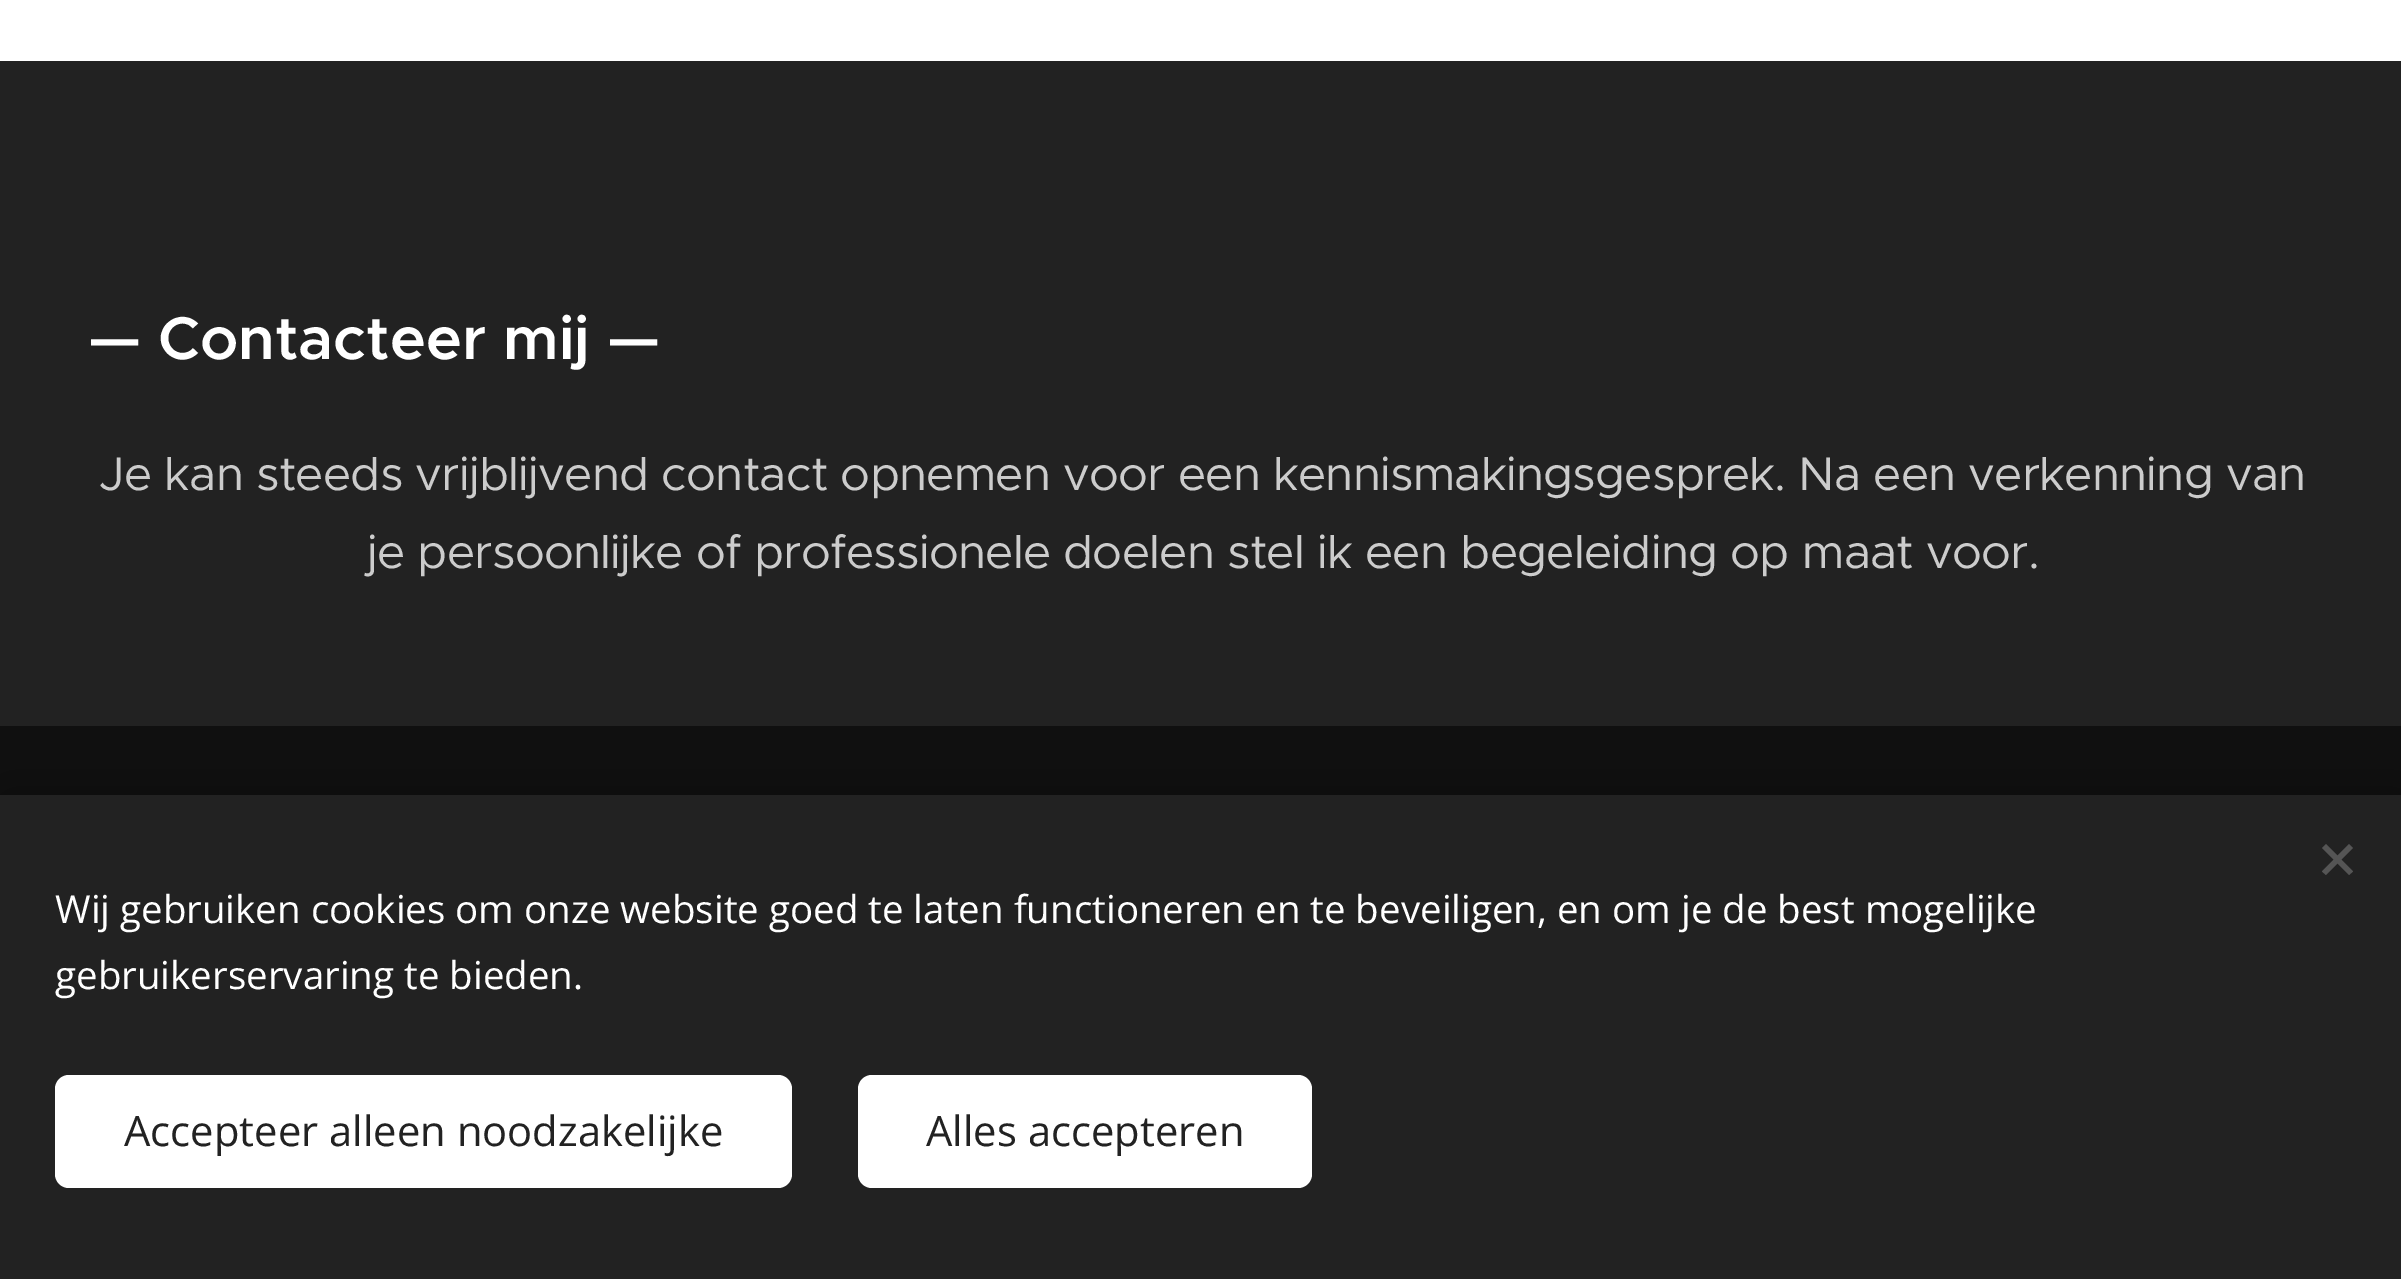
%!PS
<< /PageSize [2401 1279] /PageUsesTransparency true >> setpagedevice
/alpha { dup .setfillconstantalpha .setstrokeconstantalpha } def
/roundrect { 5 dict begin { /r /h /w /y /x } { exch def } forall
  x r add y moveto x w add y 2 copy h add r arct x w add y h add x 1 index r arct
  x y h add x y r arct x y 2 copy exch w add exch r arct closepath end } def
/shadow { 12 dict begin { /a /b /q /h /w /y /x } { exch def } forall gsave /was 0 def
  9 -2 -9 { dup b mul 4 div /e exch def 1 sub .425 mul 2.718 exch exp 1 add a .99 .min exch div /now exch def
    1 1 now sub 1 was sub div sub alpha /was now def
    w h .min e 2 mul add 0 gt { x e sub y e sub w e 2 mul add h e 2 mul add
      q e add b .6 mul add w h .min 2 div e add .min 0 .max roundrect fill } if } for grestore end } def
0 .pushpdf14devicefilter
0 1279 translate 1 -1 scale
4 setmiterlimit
1 setgray
0 0 2401 1279 rectfill
0.133 setgray
0 61 2401 665 rectfill
/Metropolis-SemiBold [60.5 0 0 -60.5 0 0] selectfont
1 setgray
88 359 moveto (— Contacteer mij —) show
/Metropolis-Regular [47.3 0 0 -47.3 0 0] selectfont
0.8 setgray
99 490 moveto -0.1 0 32 -0.7 0 (Je kan steeds vrijblijvend contact opnemen voor een kennismakingsgesprek. Na een verkenning van) awidthshow
367 568 moveto -0.7 0 (je persoonlijke of professionele doelen stel ik een begeleiding op maat voor.) ashow
0.063 setgray
0 726 2401 69 rectfill
0 setgray
0 795 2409 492 0 34.5 0.33 shadow
0.133 setgray
0 795 2401 484 rectfill
0.333 setgray
newpath 2322 871.5 moveto 2349 844 lineto 2353 848 lineto 2326 875 lineto closepath fill
newpath 2326 844 moveto 2353 871.5 lineto 2349 875 lineto 2322 848 lineto closepath fill
/OpenSans-Regular [38.5 0 0 -38.5 0 0] selectfont
1 setgray
55 923 moveto (Wij gebruiken cookies om onze website goed te laten functioneren en te beveiligen, en om je de best mogelijke) show
55 989 moveto (gebruikerservaring te bieden.) show
55 1075 737 113 14 roundrect fill
/OpenSans-Regular [41.75 0 0 -41.75 0 0] selectfont
0.133 setgray
124 1146 moveto (Accepteer alleen noodzakelijke) show
1 setgray
858 1075 454 113 14 roundrect fill
0.133 setgray
926 1146 moveto (Alles accepteren) show
.poppdf14devicefilter showpage
